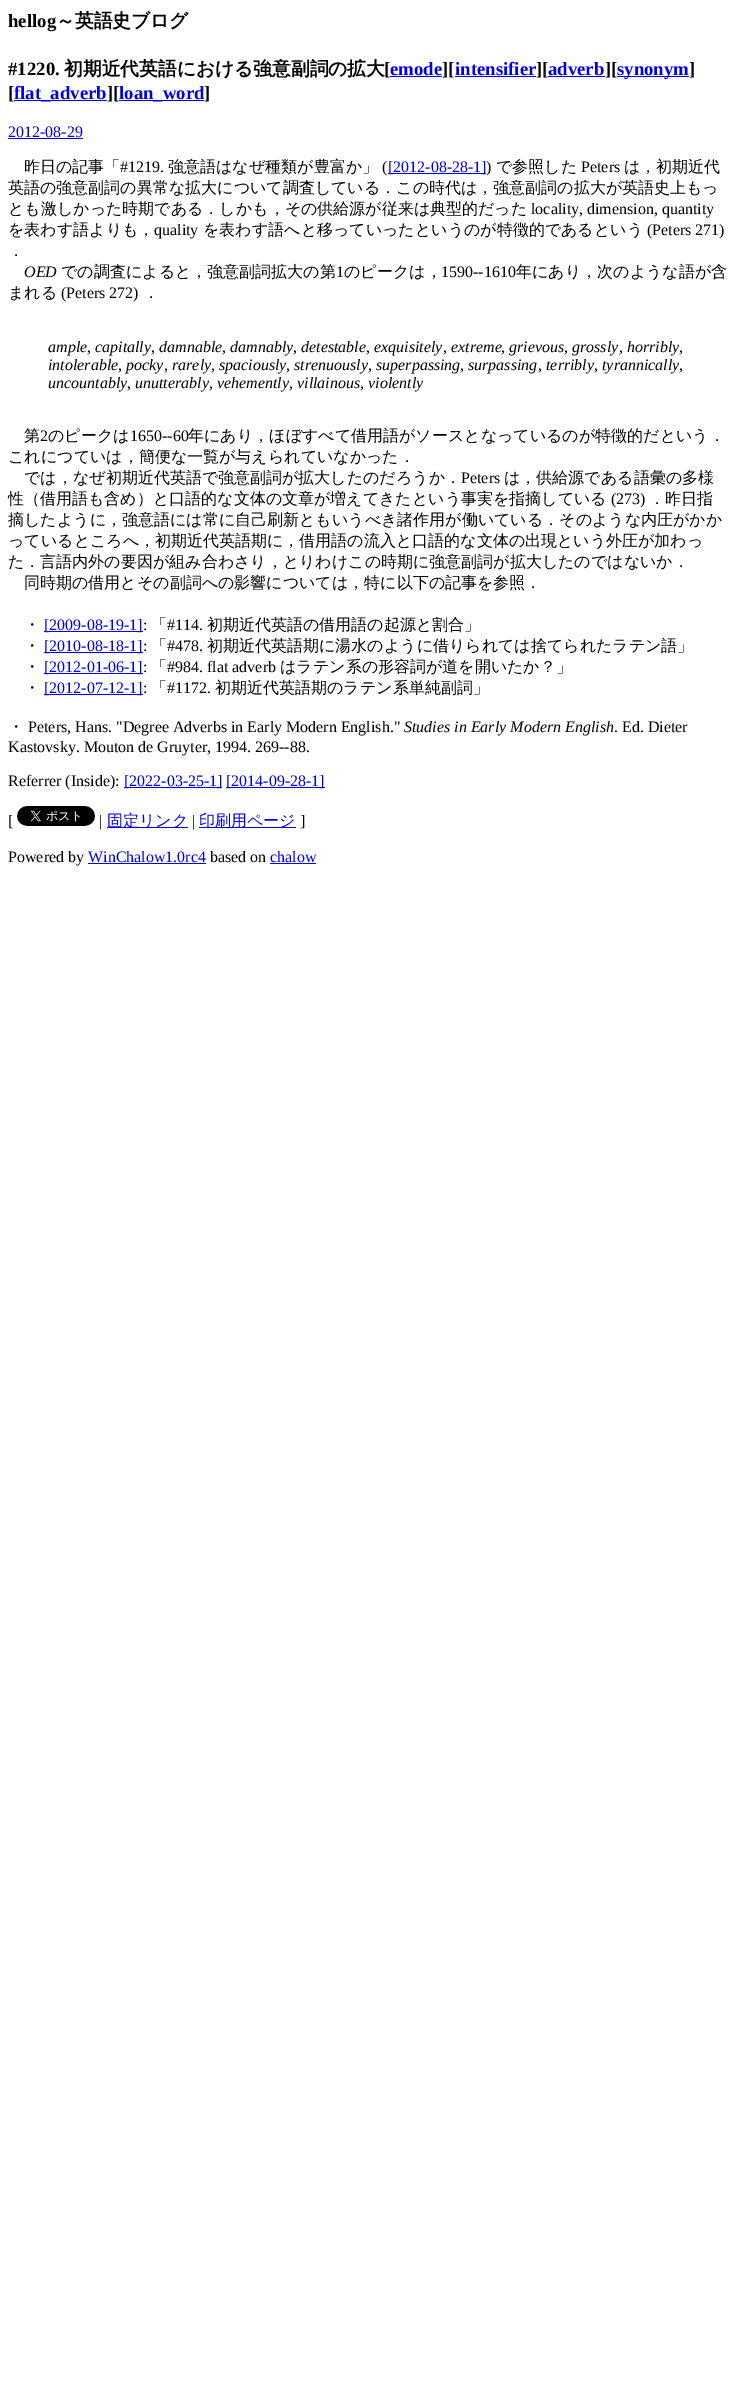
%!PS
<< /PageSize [737 2395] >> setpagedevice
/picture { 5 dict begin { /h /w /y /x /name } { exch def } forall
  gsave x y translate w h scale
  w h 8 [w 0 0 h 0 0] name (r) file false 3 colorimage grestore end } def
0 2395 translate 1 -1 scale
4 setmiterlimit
1 setgray
0 0 737 2395 rectfill
/LiberationSerif-Bold [18.75 0 0 -18.75 0 0] selectfont
0 setgray
8 27 moveto (hellog) show
/WenQuanYiZenHei-Bold [18.75 0 0 -18.75 0 0] selectfont
56 27 moveto (～英語史ブログ) show
/LiberationSerif-Bold [18.75 0 0 -18.75 0 0] selectfont
8 75 moveto (#1220.) show
/WenQuanYiZenHei-Bold [18.75 0 0 -18.75 0 0] selectfont
64 75 moveto (初期近代英語における強意副詞の拡大) show
/LiberationSerif-Bold [18.75 0 0 -18.75 0 0] selectfont
384 75 moveto ([) show
0 0 0.933 setrgbcolor
390 75 moveto (emode) show
390 76 52 1 rectfill
0 setgray
442 75 moveto (][) show
0 0 0.933 setrgbcolor
455 75 moveto (intensifier) show
455 76 81 1 rectfill
0 setgray
536 75 moveto (][) show
0 0 0.933 setrgbcolor
548 75 moveto (adverb) show
548 76 57 1 rectfill
0 setgray
605 75 moveto (][) show
0 0 0.933 setrgbcolor
617 76 72 1 rectfill
617 75 moveto (synonym) show
0 setgray
689 75 moveto (]) show
8 99 moveto ([) show
0 0 0.933 setrgbcolor
14 100 93 1 rectfill
14 99 moveto (flat_adverb) show
0 setgray
107 99 moveto (][) show
0 0 0.933 setrgbcolor
119 100 85 1 rectfill
119 99 moveto (loan_word) show
0 setgray
204 99 moveto (]) show
/LiberationSerif-Regular [16 0 0 -16 0 0] selectfont
0 0 0.933 setrgbcolor
8 137 moveto (2012-08-29) show
8 138 75 1 rectfill
/WenQuanYiZenHei-Medium [16 0 0 -16 0 0] selectfont
0 setgray
24 172 moveto (昨日の記事「) show
/LiberationSerif-Regular [16 0 0 -16 0 0] selectfont
120 172 moveto (#1219.) show
/WenQuanYiZenHei-Medium [16 0 0 -16 0 0] selectfont
168 172 moveto (強意語はなぜ種類が豊富か」) show
/LiberationSerif-Regular [16 0 0 -16 0 0] selectfont
382 172 moveto (\() show
0 0 0.933 setrgbcolor
388 173 98 1 rectfill
388 172 moveto ([2012-08-28-1]) show
0 setgray
486 172 moveto (\)) show
/WenQuanYiZenHei-Medium [16 0 0 -16 0 0] selectfont
496 172 moveto (で参照した) show
/LiberationSerif-Regular [16 0 0 -16 0 0] selectfont
581 172 moveto (Peters) show
/WenQuanYiZenHei-Medium [16 0 0 -16 0 0] selectfont
624 172 moveto (は，初期近代) show
8 193 moveto (英語の強意副詞の異常な拡大について調査している．この時代は，強意副詞の拡大が英語史上もっ) show
8 214 moveto (とも激しかった時期である．しかも，その供給源が従来は典型的だった) show
/LiberationSerif-Regular [16 0 0 -16 0 0] selectfont
531 214 moveto (locality, dimension, quantity) show
/WenQuanYiZenHei-Medium [16 0 0 -16 0 0] selectfont
8 235 moveto (を表わす語よりも，) show
/LiberationSerif-Regular [16 0 0 -16 0 0] selectfont
154 235 moveto (quality) show
/WenQuanYiZenHei-Medium [16 0 0 -16 0 0] selectfont
203 235 moveto (を表わす語へと移っていったというのが特徴的であるという) show
/LiberationSerif-Regular [16 0 0 -16 0 0] selectfont
647 235 moveto (\(Peters 271\)) show
/WenQuanYiZenHei-Medium [16 0 0 -16 0 0] selectfont
8 256 moveto (．) show
/LiberationSerif-Italic [16 0 0 -16 0 0] selectfont
24 277 moveto (OED) show
/WenQuanYiZenHei-Medium [16 0 0 -16 0 0] selectfont
61 277 moveto (での調査によると，強意副詞拡大の第) show
/LiberationSerif-Regular [16 0 0 -16 0 0] selectfont
336 277 moveto (1) show
/WenQuanYiZenHei-Medium [16 0 0 -16 0 0] selectfont
344 277 moveto (のピークは，) show
/LiberationSerif-Regular [16 0 0 -16 0 0] selectfont
441 277 moveto (1590--1610) show
/WenQuanYiZenHei-Medium [16 0 0 -16 0 0] selectfont
516 277 moveto (年にあり，次のような語が含) show
8 298 moveto (まれる) show
/LiberationSerif-Regular [16 0 0 -16 0 0] selectfont
61 298 moveto (\(Peters 272\)) show
/WenQuanYiZenHei-Medium [16 0 0 -16 0 0] selectfont
143 298 moveto (．) show
/LiberationSerif-Italic [16 0 0 -16 0 0] selectfont
48 352 moveto (ample) show
/LiberationSerif-Regular [16 0 0 -16 0 0] selectfont
87 352 moveto (,) show
/LiberationSerif-Italic [16 0 0 -16 0 0] selectfont
95 352 moveto (capitally) show
/LiberationSerif-Regular [16 0 0 -16 0 0] selectfont
151 352 moveto (,) show
/LiberationSerif-Italic [16 0 0 -16 0 0] selectfont
159 352 moveto (damnable) show
/LiberationSerif-Regular [16 0 0 -16 0 0] selectfont
222 352 moveto (,) show
/LiberationSerif-Italic [16 0 0 -16 0 0] selectfont
230 352 moveto (damnably) show
/LiberationSerif-Regular [16 0 0 -16 0 0] selectfont
293 352 moveto (,) show
/LiberationSerif-Italic [16 0 0 -16 0 0] selectfont
301 352 moveto (detestable) show
/LiberationSerif-Regular [16 0 0 -16 0 0] selectfont
366 352 moveto (,) show
/LiberationSerif-Italic [16 0 0 -16 0 0] selectfont
374 352 moveto (exquisitely) show
/LiberationSerif-Regular [16 0 0 -16 0 0] selectfont
443 352 moveto (,) show
/LiberationSerif-Italic [16 0 0 -16 0 0] selectfont
451 352 moveto (extreme) show
/LiberationSerif-Regular [16 0 0 -16 0 0] selectfont
501 352 moveto (,) show
/LiberationSerif-Italic [16 0 0 -16 0 0] selectfont
509 352 moveto (grievous) show
/LiberationSerif-Regular [16 0 0 -16 0 0] selectfont
564 352 moveto (,) show
/LiberationSerif-Italic [16 0 0 -16 0 0] selectfont
572 352 moveto (grossly) show
/LiberationSerif-Regular [16 0 0 -16 0 0] selectfont
619 352 moveto (,) show
/LiberationSerif-Italic [16 0 0 -16 0 0] selectfont
627 352 moveto (horribly) show
/LiberationSerif-Regular [16 0 0 -16 0 0] selectfont
679 352 moveto (,) show
/LiberationSerif-Italic [16 0 0 -16 0 0] selectfont
48 370 moveto (intolerable) show
/LiberationSerif-Regular [16 0 0 -16 0 0] selectfont
118 370 moveto (,) show
/LiberationSerif-Italic [16 0 0 -16 0 0] selectfont
126 370 moveto (pocky) show
/LiberationSerif-Regular [16 0 0 -16 0 0] selectfont
164 370 moveto (,) show
/LiberationSerif-Italic [16 0 0 -16 0 0] selectfont
172 370 moveto (rarely) show
/LiberationSerif-Regular [16 0 0 -16 0 0] selectfont
211 370 moveto (,) show
/LiberationSerif-Italic [16 0 0 -16 0 0] selectfont
219 370 moveto (spaciously) show
/LiberationSerif-Regular [16 0 0 -16 0 0] selectfont
286 370 moveto (,) show
/LiberationSerif-Italic [16 0 0 -16 0 0] selectfont
294 370 moveto (strenuously) show
/LiberationSerif-Regular [16 0 0 -16 0 0] selectfont
368 370 moveto (,) show
/LiberationSerif-Italic [16 0 0 -16 0 0] selectfont
376 370 moveto (superpassing) show
/LiberationSerif-Regular [16 0 0 -16 0 0] selectfont
460 370 moveto (,) show
/LiberationSerif-Italic [16 0 0 -16 0 0] selectfont
468 370 moveto (surpassing) show
/LiberationSerif-Regular [16 0 0 -16 0 0] selectfont
538 370 moveto (,) show
/LiberationSerif-Italic [16 0 0 -16 0 0] selectfont
546 370 moveto (terribly) show
/LiberationSerif-Regular [16 0 0 -16 0 0] selectfont
594 370 moveto (,) show
/LiberationSerif-Italic [16 0 0 -16 0 0] selectfont
602 370 moveto (tyrannically) show
/LiberationSerif-Regular [16 0 0 -16 0 0] selectfont
679 370 moveto (,) show
/LiberationSerif-Italic [16 0 0 -16 0 0] selectfont
48 388 moveto (uncountably) show
/LiberationSerif-Regular [16 0 0 -16 0 0] selectfont
127 388 moveto (,) show
/LiberationSerif-Italic [16 0 0 -16 0 0] selectfont
135 388 moveto (unutterably) show
/LiberationSerif-Regular [16 0 0 -16 0 0] selectfont
209 388 moveto (,) show
/LiberationSerif-Italic [16 0 0 -16 0 0] selectfont
217 388 moveto (vehemently) show
/LiberationSerif-Regular [16 0 0 -16 0 0] selectfont
289 388 moveto (,) show
/LiberationSerif-Italic [16 0 0 -16 0 0] selectfont
297 388 moveto (villainous) show
/LiberationSerif-Regular [16 0 0 -16 0 0] selectfont
360 388 moveto (,) show
/LiberationSerif-Italic [16 0 0 -16 0 0] selectfont
368 388 moveto (violently) show
/WenQuanYiZenHei-Medium [16 0 0 -16 0 0] selectfont
24 441 moveto (第) show
/LiberationSerif-Regular [16 0 0 -16 0 0] selectfont
40 441 moveto (2) show
/WenQuanYiZenHei-Medium [16 0 0 -16 0 0] selectfont
48 441 moveto (のピークは) show
/LiberationSerif-Regular [16 0 0 -16 0 0] selectfont
130 441 moveto (1650--60) show
/WenQuanYiZenHei-Medium [16 0 0 -16 0 0] selectfont
188 441 moveto (年にあり，ほぼすべて借用語がソースとなっているのが特徴的だという．) show
8 462 moveto (これにつていは，簡便な一覧が与えられていなかった．) show
24 483 moveto (では，なぜ初期近代英語で強意副詞が拡大したのだろうか．) show
/LiberationSerif-Regular [16 0 0 -16 0 0] selectfont
461 483 moveto (Peters) show
/WenQuanYiZenHei-Medium [16 0 0 -16 0 0] selectfont
504 483 moveto (は，供給源である語彙の多様) show
8 504 moveto (性（借用語も含め）と口語的な文体の文章が増えてきたという事実を指摘している) show
/LiberationSerif-Regular [16 0 0 -16 0 0] selectfont
611 504 moveto (\(273\)) show
/WenQuanYiZenHei-Medium [16 0 0 -16 0 0] selectfont
649 504 moveto (．昨日指) show
8 525 moveto (摘したように，強意語には常に自己刷新ともいうべき諸作用が働いている．そのような内圧がかか) show
8 546 moveto (っているところへ，初期近代英語期に，借用語の流入と口語的な文体の出現という外圧が加わっ) show
8 567 moveto (た．言語内外の要因が組み合わさり，とりわけこの時期に強意副詞が拡大したのではないか．) show
24 588 moveto (同時期の借用とその副詞への影響については，特に以下の記事を参照．) show
24 630 moveto (・) show
0 0 0.933 setrgbcolor
44 631 99 1 rectfill
/LiberationSerif-Regular [16 0 0 -16 0 0] selectfont
44 630 moveto ([2009-08-19-1]) show
0 setgray
143 630 moveto (:) show
/WenQuanYiZenHei-Medium [16 0 0 -16 0 0] selectfont
151 630 moveto (「) show
/LiberationSerif-Regular [16 0 0 -16 0 0] selectfont
167 630 moveto (#114.) show
/WenQuanYiZenHei-Medium [16 0 0 -16 0 0] selectfont
207 630 moveto (初期近代英語の借用語の起源と割合」) show
24 651 moveto (・) show
0 0 0.933 setrgbcolor
44 652 99 1 rectfill
/LiberationSerif-Regular [16 0 0 -16 0 0] selectfont
44 651 moveto ([2010-08-18-1]) show
0 setgray
143 651 moveto (:) show
/WenQuanYiZenHei-Medium [16 0 0 -16 0 0] selectfont
151 651 moveto (「) show
/LiberationSerif-Regular [16 0 0 -16 0 0] selectfont
167 651 moveto (#478.) show
/WenQuanYiZenHei-Medium [16 0 0 -16 0 0] selectfont
207 651 moveto (初期近代英語期に湯水のように借りられては捨てられたラテン語」) show
24 672 moveto (・) show
0 0 0.933 setrgbcolor
44 673 99 1 rectfill
/LiberationSerif-Regular [16 0 0 -16 0 0] selectfont
44 672 moveto ([2012-01-06-1]) show
0 setgray
143 672 moveto (:) show
/WenQuanYiZenHei-Medium [16 0 0 -16 0 0] selectfont
151 672 moveto (「) show
/LiberationSerif-Regular [16 0 0 -16 0 0] selectfont
167 672 moveto (#984. flat adverb) show
/WenQuanYiZenHei-Medium [16 0 0 -16 0 0] selectfont
280 672 moveto (はラテン系の形容詞が道を開いたか？」) show
24 693 moveto (・) show
0 0 0.933 setrgbcolor
44 694 99 1 rectfill
/LiberationSerif-Regular [16 0 0 -16 0 0] selectfont
44 693 moveto ([2012-07-12-1]) show
0 setgray
143 693 moveto (:) show
/WenQuanYiZenHei-Medium [16 0 0 -16 0 0] selectfont
151 693 moveto (「) show
/LiberationSerif-Regular [16 0 0 -16 0 0] selectfont
167 693 moveto (#1172.) show
/WenQuanYiZenHei-Medium [16 0 0 -16 0 0] selectfont
215 693 moveto (初期近代英語期のラテン系単純副詞」) show
8 732 moveto (・) show
/LiberationSerif-Regular [16 0 0 -16 0 0] selectfont
28 732 moveto (Peters, Hans. "Degree Adverbs in Early Modern English.") show
/LiberationSerif-Italic [16 0 0 -16 0 0] selectfont
404 732 moveto (Studies in Early Modern English) show
/LiberationSerif-Regular [16 0 0 -16 0 0] selectfont
614 732 moveto (. Ed. Dieter) show
8 752 moveto (Kastovsky. Mouton de Gruyter, 1994. 269--88.) show
8 786 moveto (Referrer \(Inside\):) show
0 0 0.933 setrgbcolor
124 787 98 1 rectfill
124 786 moveto ([2022-03-25-1]) show
226 787 99 1 rectfill
226 786 moveto ([2014-09-28-1]) show
0 setgray
8 826 moveto ([) show
(img1.rgb) 17 806 78 20 picture
99 826 moveto (|) show
0 0 0.933 setrgbcolor
107 827 81 1 rectfill
/WenQuanYiZenHei-Medium [16 0 0 -16 0 0] selectfont
107 826 moveto (固定リンク) show
/LiberationSerif-Regular [16 0 0 -16 0 0] selectfont
0 setgray
192 826 moveto (|) show
0 0 0.933 setrgbcolor
199 827 97 1 rectfill
/WenQuanYiZenHei-Medium [16 0 0 -16 0 0] selectfont
199 826 moveto (印刷用ページ) show
/LiberationSerif-Regular [16 0 0 -16 0 0] selectfont
0 setgray
300 826 moveto (]) show
8 862 moveto (Powered by) show
0 0 0.933 setrgbcolor
88 862 moveto (WinChalow1.0rc4) show
88 863 118 1 rectfill
0 setgray
210 862 moveto (based on) show
0 0 0.933 setrgbcolor
270 862 moveto (chalow) show
270 863 46 1 rectfill
showpage
